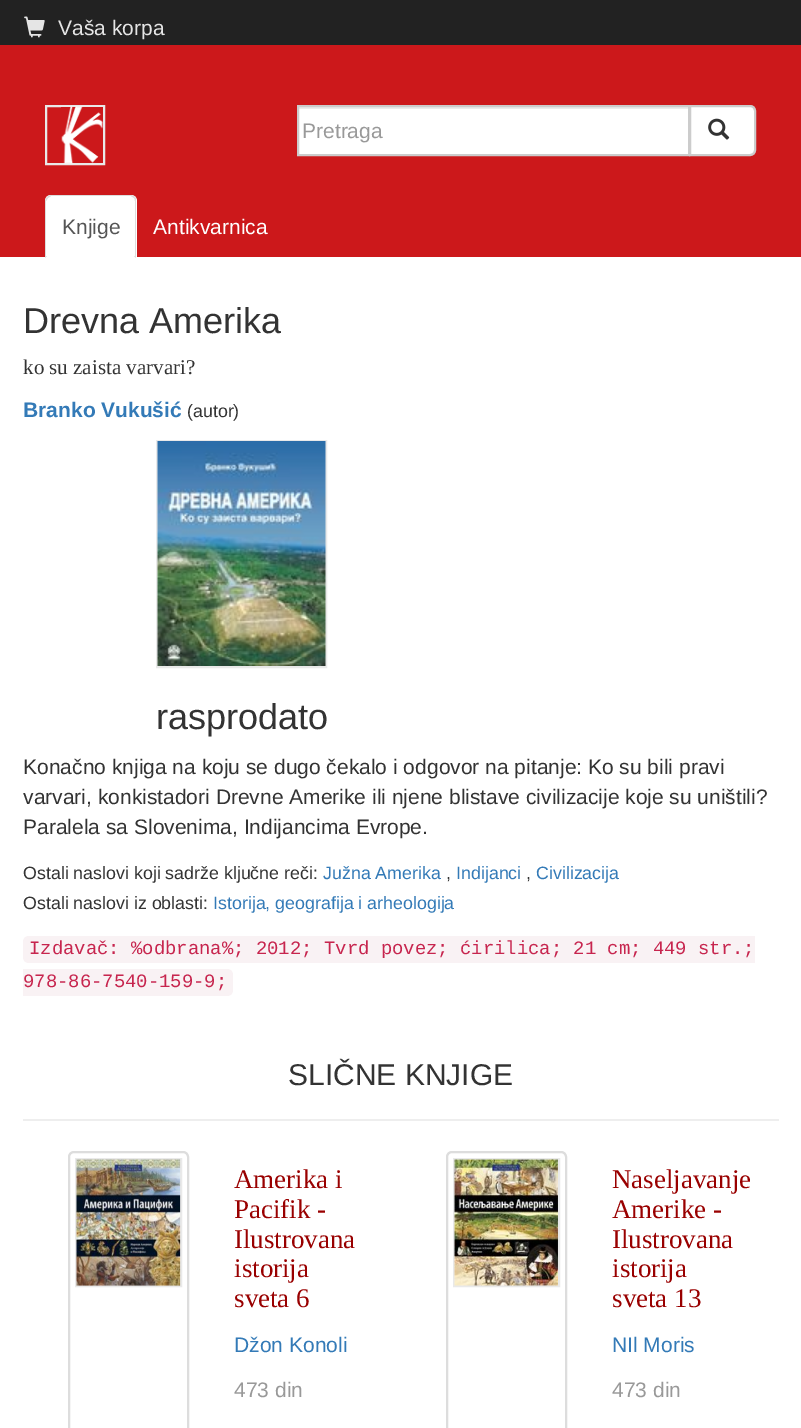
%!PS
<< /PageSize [801 1428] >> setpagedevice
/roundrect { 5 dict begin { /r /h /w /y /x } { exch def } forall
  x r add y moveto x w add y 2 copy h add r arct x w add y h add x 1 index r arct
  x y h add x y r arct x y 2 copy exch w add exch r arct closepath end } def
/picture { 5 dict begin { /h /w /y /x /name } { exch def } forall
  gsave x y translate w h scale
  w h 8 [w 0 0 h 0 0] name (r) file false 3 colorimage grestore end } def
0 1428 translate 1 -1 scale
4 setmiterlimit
1 setgray
0 0 801 1428 rectfill
0.133 setgray
0 0 801 45 rectfill
(img1.rgb) 24 16 21 22 picture
/LiberationSans-Regular [21 0 0 -21 0 0] selectfont
0.898 setgray
58 35 moveto (Vaša korpa) show
0.8 0.094 0.106 setrgbcolor
0 45 801 212 rectfill
0.914 setgray
2 setlinewidth
46 106 58 58 rectstroke
(img2.rgb) 61 106 42 58 picture
1 setgray
299 109 389 45 rectfill
0.925 setgray
299 107 390 2 rectfill
1 setgray
newpath 690 106 moveto 750 106 lineto 753 106 755 108 755 111 curveto 755 150 lineto 755 153 753 155 750 155 curveto 690 155 lineto closepath gsave fill grestore
0.8 setgray
stroke
298 106 391 49 rectstroke
0.6 setgray
302 138 moveto (Pretraga) show
(img3.rgb) 708 118 22 22 picture
1 setgray
newpath 51 195 moveto 131 195 lineto 134.5 195 137 197.5 137 201 curveto 137 258 lineto 45 258 lineto 45 201 lineto 45 197.5 47.5 195 51 195 curveto closepath fill
0.867 setgray
newpath 51 195 moveto 50 195 48 196 47 197 curveto 48 198 lineto 51 196 lineto 131 196 lineto 134 198 lineto 135 197 lineto 134 196 132 195 130 195 curveto closepath fill
newpath 135 197 moveto 136 198 136 200 136 201 curveto 136 258 lineto 134 256 lineto 135 256 lineto 135 201 lineto 135 200 135 199 134 198 curveto closepath fill
newpath 45 258 moveto 47 256 lineto 46 256 lineto 46 201 lineto 48 198 lineto 47 197 lineto 46 198 45 200 45 201 curveto closepath fill
0.333 setgray
62 234 moveto (Knjige) show
1 setgray
153 234 moveto (Antikvarnica) show
/LiberationSans-Regular [36 0 0 -36 0 0] selectfont
0.2 setgray
23 333 moveto (Drevna Amerika) show
/LiberationSerif-Regular [21 0 0 -21 0 0] selectfont
23 374 moveto (ko su zaista varvari?) show
/LiberationSans-Bold [21 0 0 -21 0 0] selectfont
0.2 0.478 0.718 setrgbcolor
23 417 moveto (Branko Vukušić) show
/LiberationSans-Regular [17.8 0 0 -17.8 0 0] selectfont
0.2 setgray
187 417 moveto (\(autor\)) show
0.914 setgray
157 441 169 226 rectstroke
(img4.rgb) 157 441 169 225 picture
/LiberationSans-Regular [36 0 0 -36 0 0] selectfont
0.2 setgray
156 729 moveto (rasprodato) show
/LiberationSans-Regular [21 0 0 -21 0 0] selectfont
23 774 moveto (Konačno knjiga na koju se dugo čekalo i odgovor na pitanje: Ko su bili pravi) show
23 804 moveto (varvari, konkistadori Drevne Amerike ili njene blistave civilizacije koje su uništili?) show
23 834 moveto (Paralela sa Slovenima, Indijancima Evrope.) show
/LiberationSans-Regular [17.8 0 0 -17.8 0 0] selectfont
23 879 moveto (Ostali naslovi koji sadrže ključne reči:) show
0.2 0.478 0.718 setrgbcolor
323 879 moveto (Južna Amerika) show
0.2 setgray
446 879 moveto (,) show
0.2 0.478 0.718 setrgbcolor
456 879 moveto (Indijanci) show
0.2 setgray
526 879 moveto (,) show
0.2 0.478 0.718 setrgbcolor
536 879 moveto (Civilizacija) show
0.2 setgray
23 909 moveto (Ostali naslovi iz oblasti:) show
0.2 0.478 0.718 setrgbcolor
213 909 moveto (Istorija, geografija i arheologija) show
0.976 0.949 0.957 setrgbcolor
newpath 29 936 moveto 755 936 lineto 755 963 lineto 29 963 lineto 25.5 963 23 960.5 23 957 curveto 23 942 lineto 23 938.5 25.5 936 29 936 curveto closepath fill
/LiberationMono-Regular [18.9 0 0 -18.9 0 0] selectfont
0.78 0.145 0.306 setrgbcolor
29 954 moveto (Izdavač: %odbrana%; 2012; Tvrd povez; ćirilica; 21 cm; 449 str.;) show
0.976 0.949 0.957 setrgbcolor
newpath 23 969 moveto 227 969 lineto 230.5 969 233 971.5 233 975 curveto 233 990 lineto 233 993.5 230.5 996 227 996 curveto 23 996 lineto closepath fill
0.78 0.145 0.306 setrgbcolor
23 987 moveto (978-86-7540-159-9;) show
0.933 setgray
23 1119 756 2 rectfill
/LiberationSans-Regular [30 0 0 -30 0 0] selectfont
0.2 setgray
288 1085 moveto (SLIČNE KNJIGE) show
0.867 setgray
69 1152 119 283 5 roundrect stroke
0.914 setgray
76 1159 105 127 rectstroke
(img5.rgb) 76 1159 105 127 picture
/LiberationSerif-Regular [27 0 0 -27 0 0] selectfont
0.6 0 0 setrgbcolor
234 1188 moveto (Amerika i) show
234 1218 moveto (Pacifik -) show
234 1248 moveto (Ilustrovana) show
234 1277 moveto (istorija) show
234 1307 moveto (sveta 6) show
/LiberationSans-Regular [21 0 0 -21 0 0] selectfont
0.2 0.478 0.718 setrgbcolor
234 1352 moveto (Džon Konoli) show
0.6 setgray
234 1397 moveto (473 din) show
0.867 setgray
447 1152 119 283 5 roundrect stroke
0.914 setgray
454 1159 105 127 rectstroke
(img6.rgb) 454 1159 104 127 picture
/LiberationSerif-Regular [27 0 0 -27 0 0] selectfont
0.6 0 0 setrgbcolor
612 1188 moveto (Naseljavanje) show
612 1218 moveto (Amerike -) show
612 1248 moveto (Ilustrovana) show
612 1277 moveto (istorija) show
612 1307 moveto (sveta 13) show
/LiberationSans-Regular [21 0 0 -21 0 0] selectfont
0.2 0.478 0.718 setrgbcolor
612 1352 moveto (NIl Moris) show
0.6 setgray
612 1397 moveto (473 din) show
showpage
